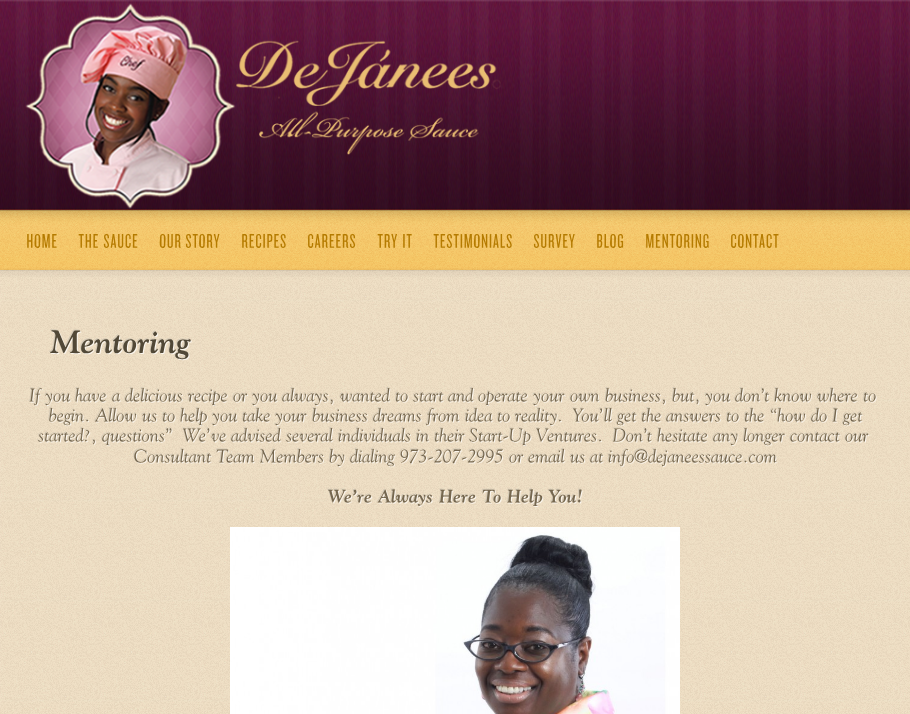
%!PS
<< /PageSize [910 714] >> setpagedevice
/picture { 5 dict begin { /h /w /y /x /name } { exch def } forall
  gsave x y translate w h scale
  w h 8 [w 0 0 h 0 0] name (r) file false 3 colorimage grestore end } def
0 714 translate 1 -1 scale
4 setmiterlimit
1 setgray
0 0 910 714 rectfill
(img1.rgb) 0 210 910 504 picture
(img2.rgb) 0 0 910 277 picture
(img3.rgb) 25 3 476 206 picture
(img4.rgb) 27 234 30 14 picture
(img5.rgb) 78 234 20 14 picture
(img6.rgb) 103 234 35 14 picture
(img7.rgb) 159 234 22 14 picture
(img8.rgb) 185 234 35 14 picture
(img9.rgb) 242 234 44 14 picture
(img10.rgb) 308 234 48 14 picture
(img11.rgb) 377 234 20 14 picture
(img12.rgb) 403 234 9 14 picture
(img13.rgb) 433 234 79 14 picture
(img14.rgb) 533 234 42 14 picture
(img15.rgb) 597 234 27 14 picture
(img16.rgb) 646 234 63 14 picture
(img17.rgb) 731 234 48 14 picture
(img18.rgb) 49 329 143 32 picture
(img19.rgb) 28 387 15 20 picture
(img20.rgb) 44 392 28 15 picture
(img21.rgb) 74 387 33 16 picture
(img22.rgb) 111 392 10 11 picture
(img23.rgb) 124 386 59 17 picture
(img24.rgb) 187 388 41 19 picture
(img25.rgb) 232 392 16 11 picture
(img26.rgb) 251 392 28 15 picture
(img27.rgb) 281 387 53 20 picture
(img28.rgb) 339 387 52 16 picture
(img29.rgb) 395 391 14 12 picture
(img30.rgb) 412 391 33 12 picture
(img31.rgb) 447 386 28 17 picture
(img32.rgb) 477 390 51 17 picture
(img33.rgb) 532 392 34 15 picture
(img34.rgb) 569 392 32 11 picture
(img35.rgb) 604 387 62 19 picture
(img36.rgb) 671 387 29 18 picture
(img37.rgb) 704 392 28 15 picture
(img38.rgb) 734 387 36 16 picture
(img39.rgb) 773 387 39 16 picture
(img40.rgb) 816 386 42 17 picture
(img41.rgb) 863 391 14 12 picture
(img42.rgb) 48 406 41 21 picture
(img43.rgb) 94 406 43 17 picture
(img44.rgb) 141 412 17 11 picture
(img45.rgb) 162 411 14 12 picture
(img46.rgb) 179 406 29 21 picture
(img47.rgb) 211 412 28 15 picture
(img48.rgb) 242 407 29 16 picture
(img49.rgb) 274 412 34 15 picture
(img50.rgb) 311 407 57 16 picture
(img51.rgb) 372 407 50 16 picture
(img52.rgb) 425 407 36 20 picture
(img53.rgb) 464 406 30 17 picture
(img54.rgb) 497 411 14 12 picture
(img55.rgb) 514 406 48 21 picture
(img56.rgb) 572 406 41 17 picture
(img57.rgb) 615 411 23 16 picture
(img58.rgb) 641 407 21 16 picture
(img59.rgb) 665 412 56 11 picture
(img60.rgb) 726 411 14 12 picture
(img61.rgb) 744 407 21 16 picture
(img62.rgb) 770 407 36 16 picture
(img63.rgb) 810 406 18 17 picture
(img64.rgb) 831 407 8 16 picture
(img65.rgb) 842 411 22 16 picture
(img66.rgb) 37 426 59 20 picture
(img67.rgb) 101 427 72 20 picture
(img68.rgb) 182 427 45 16 picture
(img69.rgb) 230 426 52 17 picture
(img70.rgb) 285 426 49 17 picture
(img71.rgb) 337 426 74 17 picture
(img72.rgb) 415 428 15 15 picture
(img73.rgb) 434 426 32 17 picture
(img74.rgb) 468 427 64 20 picture
(img75.rgb) 535 427 67 16 picture
(img76.rgb) 612 427 41 16 picture
(img77.rgb) 656 427 52 16 picture
(img78.rgb) 712 432 27 15 picture
(img79.rgb) 742 427 44 20 picture
(img80.rgb) 789 431 52 12 picture
(img81.rgb) 844 432 26 11 picture
(img82.rgb) 133 448 79 16 picture
(img83.rgb) 215 448 41 16 picture
(img84.rgb) 259 447 65 17 picture
(img85.rgb) 328 448 18 20 picture
(img86.rgb) 349 447 47 21 picture
(img87.rgb) 399 448 105 17 picture
(img88.rgb) 508 453 16 11 picture
(img89.rgb) 527 447 39 17 picture
(img90.rgb) 569 453 17 11 picture
(img91.rgb) 589 452 15 12 picture
(img92.rgb) 607 447 171 21 picture
(img93.rgb) 327 488 46 16 picture
(img94.rgb) 377 488 56 19 picture
(img95.rgb) 438 488 39 16 picture
(img96.rgb) 481 488 21 16 picture
(img97.rgb) 506 488 38 19 picture
(img98.rgb) 548 488 35 16 picture
(img99.rgb) 230 527 450 187 picture
showpage
